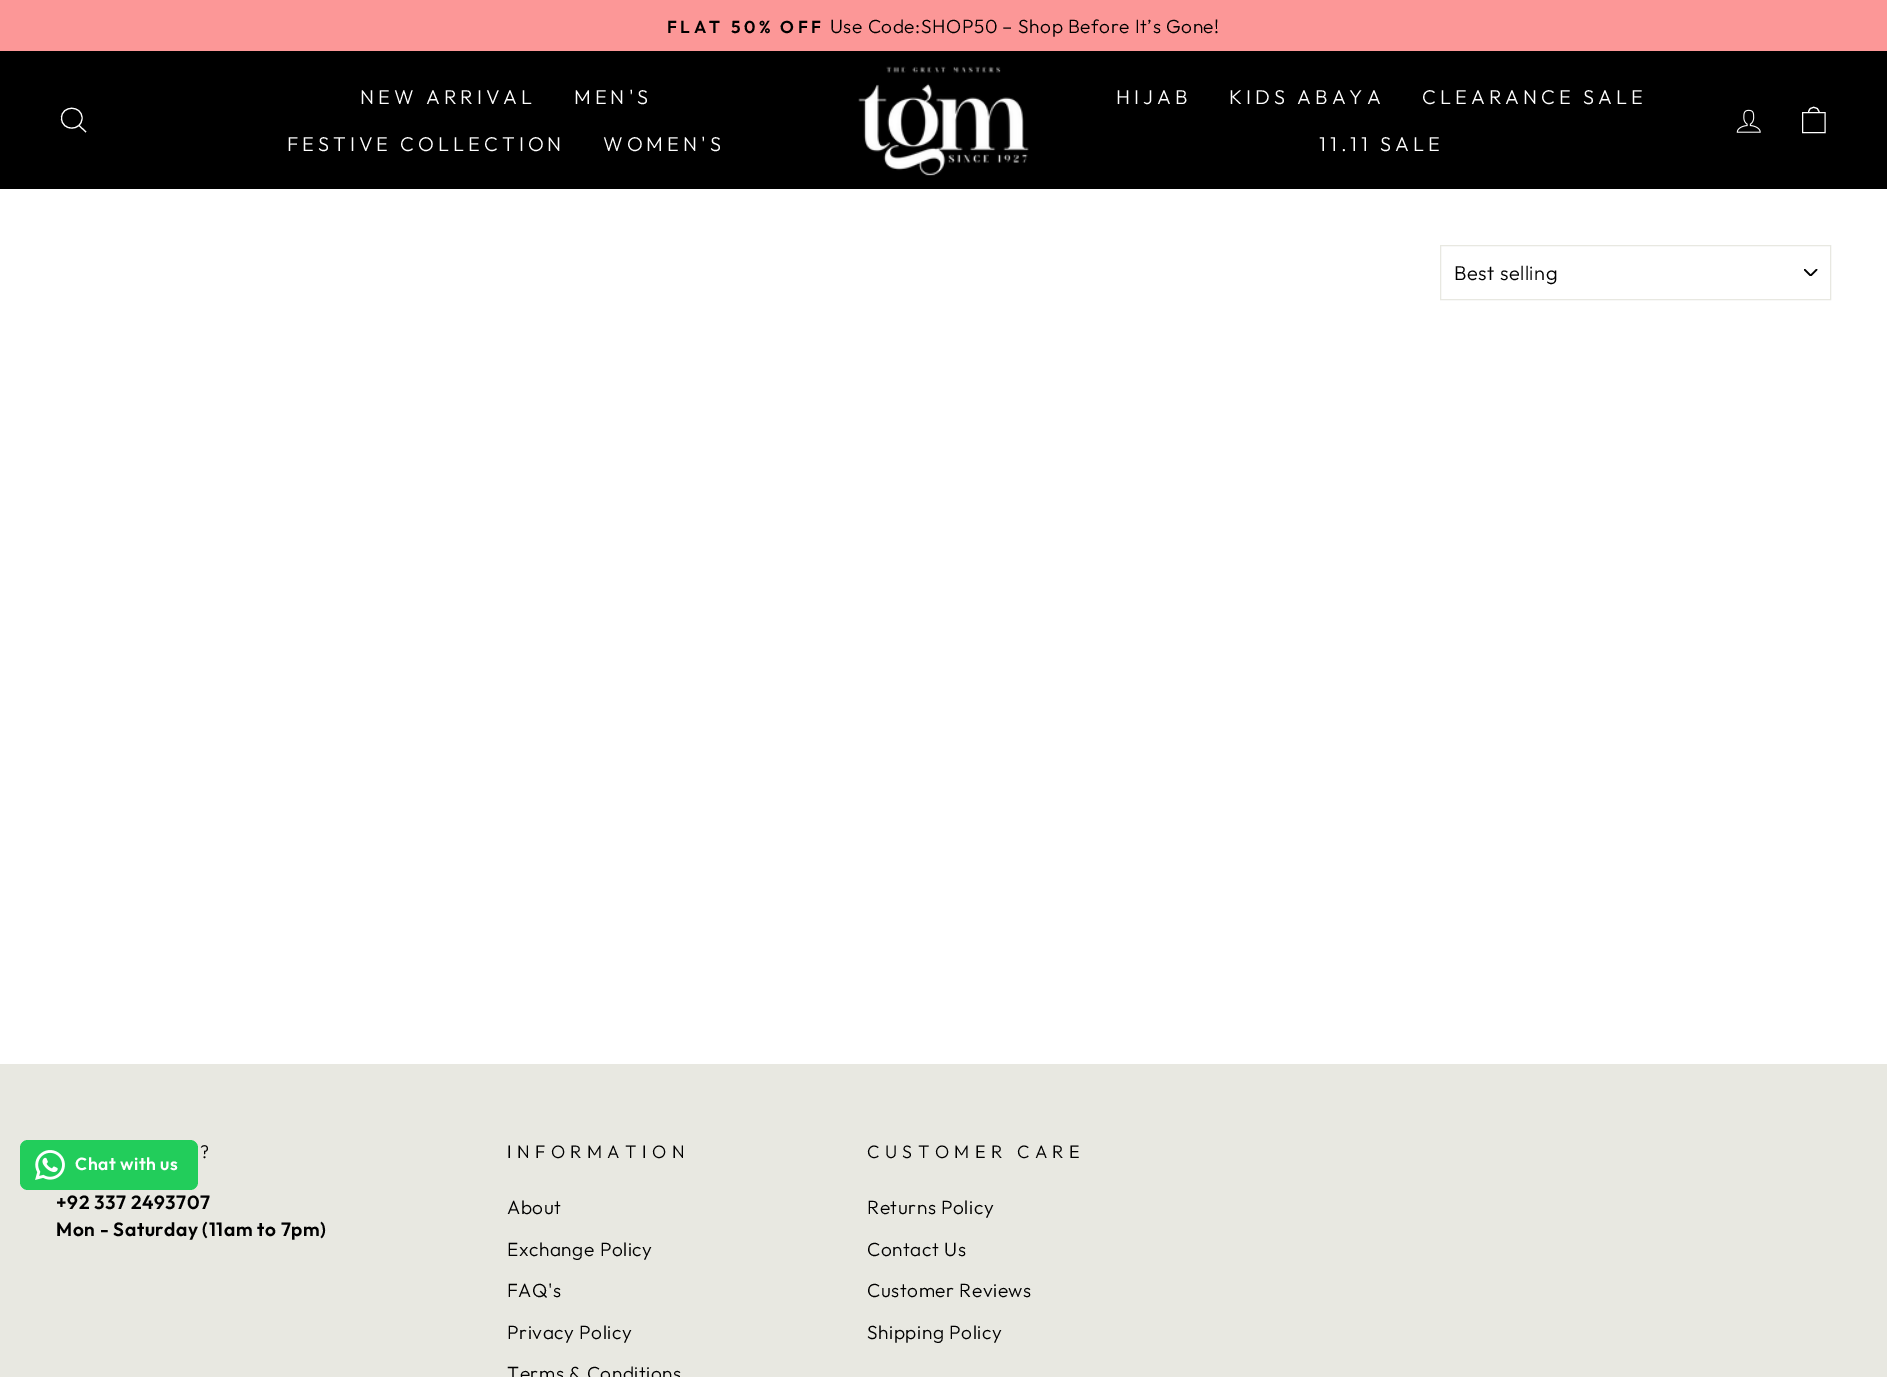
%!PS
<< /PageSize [1887 1377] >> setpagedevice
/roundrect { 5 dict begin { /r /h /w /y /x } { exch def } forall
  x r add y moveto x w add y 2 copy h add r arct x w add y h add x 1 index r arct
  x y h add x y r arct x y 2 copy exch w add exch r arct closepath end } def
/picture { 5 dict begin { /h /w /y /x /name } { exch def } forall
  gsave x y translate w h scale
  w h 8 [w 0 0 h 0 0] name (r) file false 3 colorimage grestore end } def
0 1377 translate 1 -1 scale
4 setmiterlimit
1 setgray
0 0 1887 1377 rectfill
0.988 0.592 0.592 setrgbcolor
0 0 1887 51 rectfill
/Outfit-SemiBold [17.25 0 0 -17.25 0 0] selectfont
0 setgray
667 33 moveto 3.5 0 (FLAT 50% OFF) ashow
/Outfit-Light [19.1 0 0 -19.1 0 0] selectfont
830 33 moveto 0.55 0 (Use Code:SHOP50 – Shop Before It’s Gone!) ashow
0 51 1887 138 rectfill
1 setgray
1.1 setlinewidth
newpath 82 118 moveto 82 131.5 61.5 131.5 61.5 118 curveto 61.5 105 82 105 82 118 curveto closepath 86 132 moveto 79 125.5 lineto stroke
/Outfit-Light [20 0 0 -20 0 0] selectfont
360 104 moveto 4 0 (NEW ARRIVAL) ashow
574 104 moveto 4 0 (MEN'S) ashow
287 151 moveto 4 0 (FESTIVE COLLECTION) ashow
603 151 moveto 4 0 (WOMEN'S) ashow
(img1.rgb) 858 66 171 110 picture
1116 104 moveto 4 0 (HIJAB) ashow
1229 104 moveto 4 0 (KIDS ABAYA) ashow
1422 104 moveto 4 0 (CLEARANCE SALE) ashow
1319 151 moveto 4 0 (11.11 SALE) ashow
(img2.rgb) 1736 109 25 24 picture
newpath 1802.5 112.5 moveto 1825 112.5 lineto 1825 132.5 lineto 1802.5 132.5 lineto closepath 1808.5 112.5 moveto 1808.5 105.5 1819 105.5 1819 112.5 curveto stroke
(img3.rgb) 1804 269 14 7 picture
0.91 0.91 0.882 setrgbcolor
1 setlinewidth
1440.5 245.5 390 54 rectstroke
0 setgray
1454 280 moveto 0.5 0 (Best selling) ashow
0.91 0.91 0.882 setrgbcolor
0 1064 1887 313 rectfill
/Outfit-Light [18 0 0 -18 0 0] selectfont
0 setgray
200 1158 moveto 5.4 0 (?) ashow
/Outfit-SemiBold [19.1 0 0 -19.1 0 0] selectfont
56 1209 moveto 0.55 0 (+92 337 2493707) ashow
56 1236 moveto 0.55 0 (Mon - Saturday \(11am to 7pm\)) ashow
/Outfit-Light [18 0 0 -18 0 0] selectfont
507 1158 moveto 5.4 0 (INFORMATION) ashow
/Outfit-Light [19.1 0 0 -19.1 0 0] selectfont
507 1214 moveto 0.55 0 (About) ashow
507 1256 moveto 0.55 0 (Exchange Policy) ashow
507 1297 moveto 0.55 0 (FAQ's) ashow
507 1339 moveto 0.55 0 (Privacy Policy) ashow
507 1380 moveto 0.55 0 (Terms & Conditions) ashow
/Outfit-Light [18 0 0 -18 0 0] selectfont
867 1158 moveto 5.4 0 (CUSTOMER CARE) ashow
/Outfit-Light [19.1 0 0 -19.1 0 0] selectfont
867 1214 moveto 0.55 0 (Returns Policy) ashow
867 1256 moveto 0.55 0 (Contact Us) ashow
867 1297 moveto 0.55 0 (Customer Reviews) ashow
867 1339 moveto 0.55 0 (Shipping Policy) ashow
0.133 0.804 0.357 setrgbcolor
20 1140 178 50 8 roundrect fill
(img4.rgb) 35 1150 30 30 picture
/Outfit-SemiBold [17.5 0 0 -17.5 0 0] selectfont
1 setgray
75 1170 moveto 0.5 0 (Chat with us) ashow
showpage
